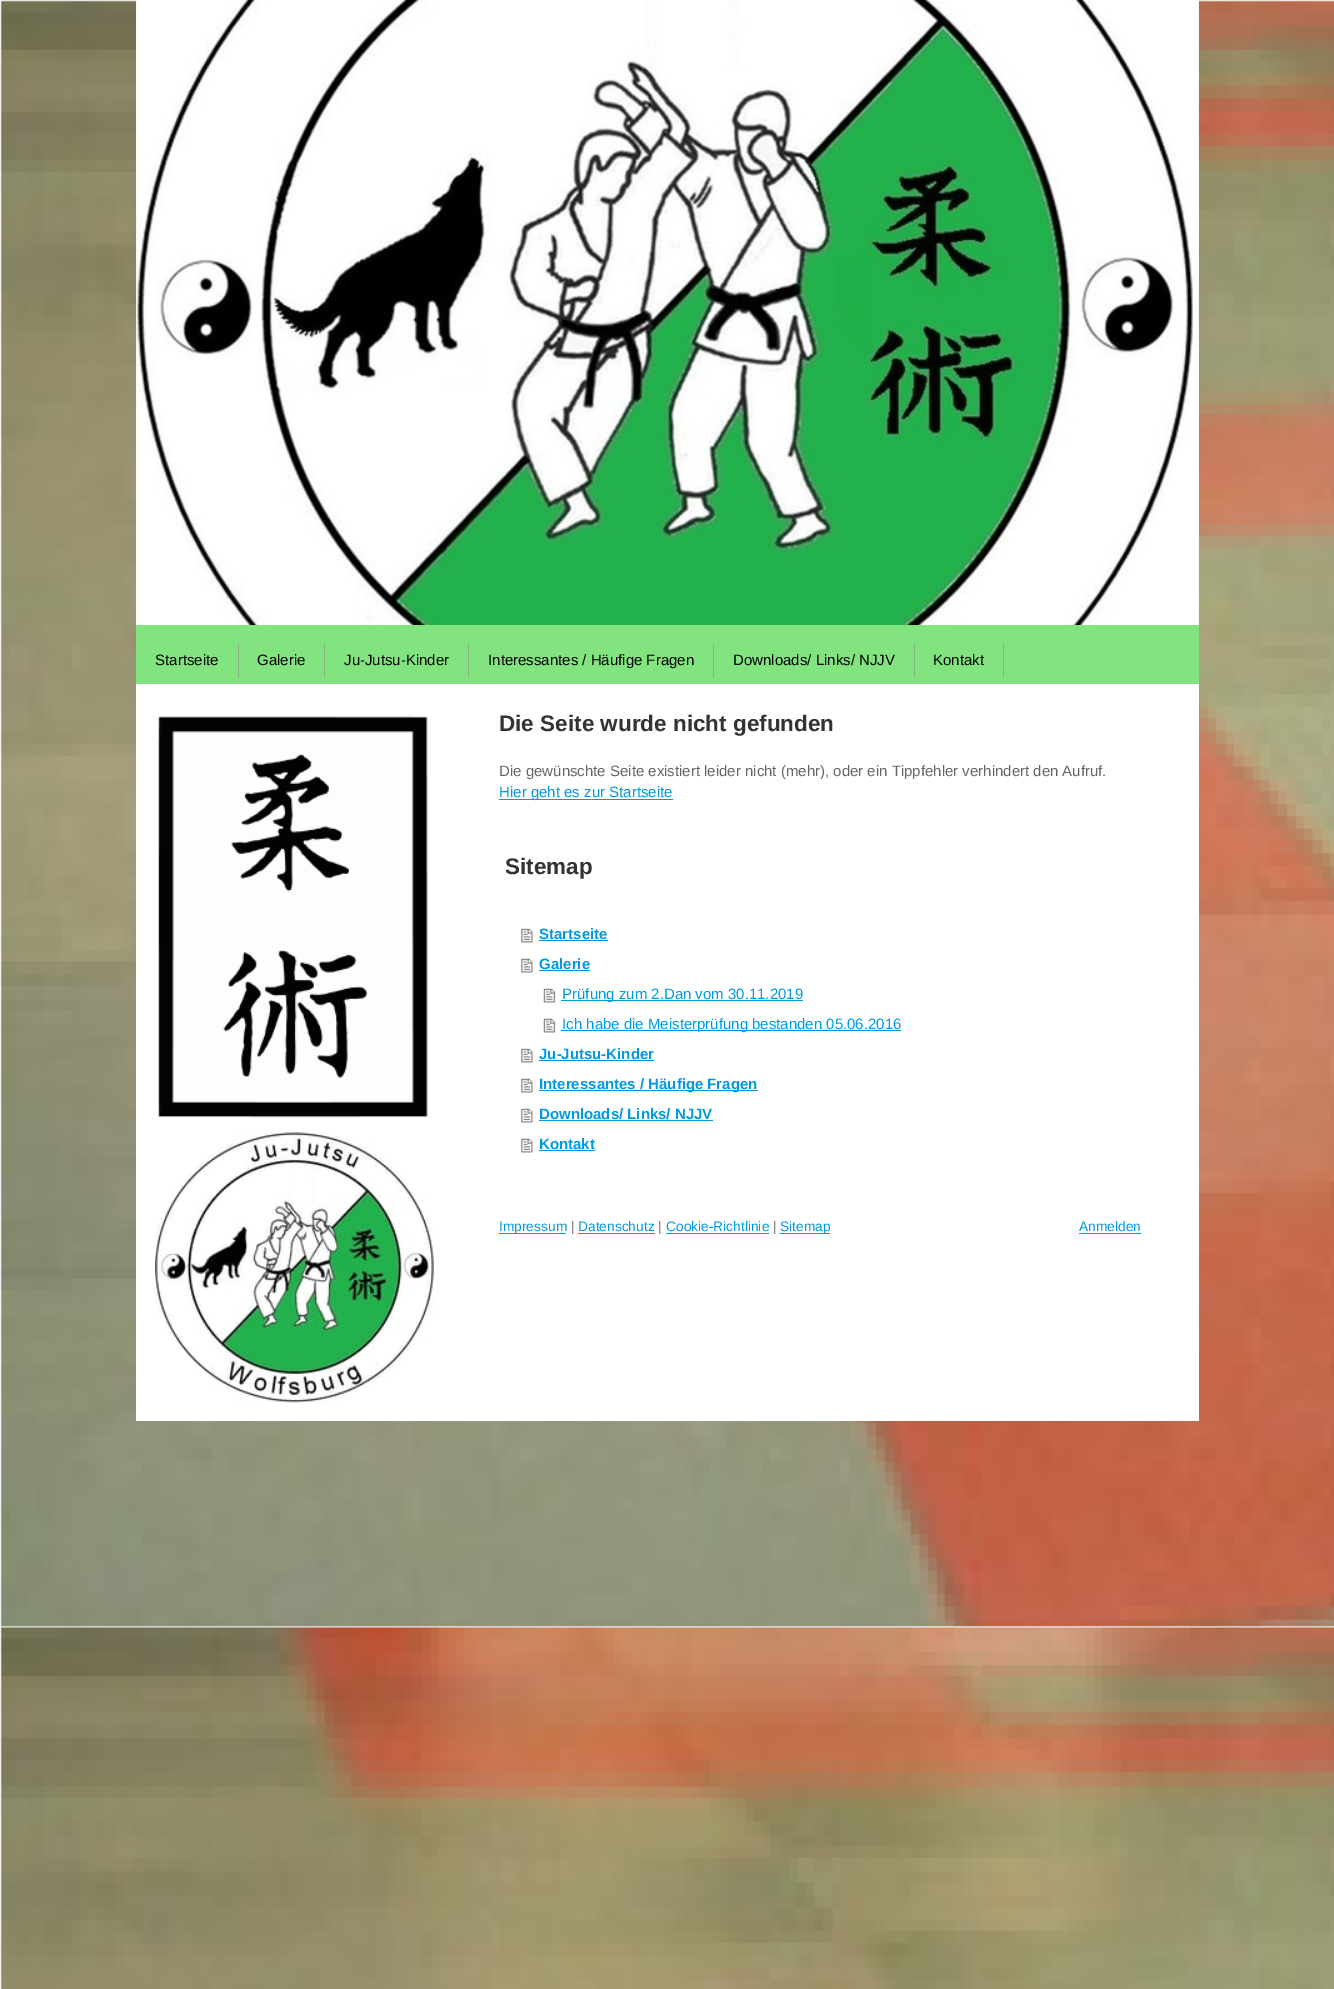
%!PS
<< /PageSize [1334 1989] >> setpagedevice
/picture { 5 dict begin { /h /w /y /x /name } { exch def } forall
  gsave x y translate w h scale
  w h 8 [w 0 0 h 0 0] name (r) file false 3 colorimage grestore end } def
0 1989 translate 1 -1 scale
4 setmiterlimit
1 setgray
0 0 1334 1989 rectfill
(img1.rgb) 0 0 1334 1989 picture
0.933 setgray
136 0 1063 625 rectfill
(img2.rgb) 136 0 1063 625 picture
0.51 0.894 0.494 setrgbcolor
136 625 1063 59 rectfill
0.529 0.694 0.522 setrgbcolor
238 644 1 34 rectfill
/LiberationSans-Regular [15 0 0 -15 0 0] selectfont
0 setgray
155 665 moveto (Startseite) show
0.529 0.694 0.522 setrgbcolor
324 644 1 34 rectfill
0 setgray
257 665 moveto (Galerie) show
0.529 0.694 0.522 setrgbcolor
468 644 1 34 rectfill
0 setgray
344 665 moveto (Ju-Jutsu-Kinder) show
0.529 0.694 0.522 setrgbcolor
713 644 1 34 rectfill
0 setgray
488 665 moveto (Interessantes / Häufige Fragen) show
0.529 0.694 0.522 setrgbcolor
914 644 1 34 rectfill
0 setgray
733 665 moveto (Downloads/ Links/ NJJV) show
0.529 0.694 0.522 setrgbcolor
1003 644 1 34 rectfill
0 setgray
933 665 moveto (Kontakt) show
1 setgray
136 684 1063 737 rectfill
(img3.rgb) 158 716 270 402 picture
(img4.rgb) 155 1132 279 271 picture
/LiberationSans-Bold [22.5 0 0 -22.5 0 0] selectfont
0.2 setgray
499 731 moveto (Die Seite wurde nicht gefunden) show
/LiberationSans-Regular [15 0 0 -15 0 0] selectfont
0.4 setgray
499 776 moveto (Die gewünschte Seite existiert leider nicht \(mehr\), oder ein Tippfehler verhindert den Aufruf.) show
0 0.6 0.882 setrgbcolor
499 799 174 1 rectfill
499 797 moveto (Hier geht es zur Startseite) show
/LiberationSans-Bold [22.5 0 0 -22.5 0 0] selectfont
0.2 setgray
505 874 moveto (Sitemap) show
(img5.rgb) 521 928 12 15 picture
/LiberationSans-Bold [15 0 0 -15 0 0] selectfont
0 0.6 0.882 setrgbcolor
539 939 moveto (Startseite) show
539 940 69 1 rectfill
(img5.rgb) 521 958 12 15 picture
539 969 moveto (Galerie) show
539 970 51 1 rectfill
(img6.rgb) 543 988 13 15 picture
561 1000 242 1 rectfill
/LiberationSans-Regular [15 0 0 -15 0 0] selectfont
562 999 moveto (Prüfung zum 2.Dan vom 30.11.2019) show
(img6.rgb) 543 1018 13 15 picture
561 1030 340 1 rectfill
562 1029 moveto (Ich habe die Meisterprüfung bestanden 05.06.2016) show
(img5.rgb) 521 1048 12 15 picture
/LiberationSans-Bold [15 0 0 -15 0 0] selectfont
539 1059 moveto (Ju-Jutsu-Kinder) show
539 1060 115 1 rectfill
(img5.rgb) 521 1078 12 15 picture
539 1090 219 1 rectfill
539 1089 moveto (Interessantes / Häufige Fragen) show
(img5.rgb) 521 1108 12 15 picture
539 1119 moveto (Downloads/ Links/ NJJV) show
539 1120 174 1 rectfill
(img5.rgb) 521 1138 12 15 picture
539 1149 moveto (Kontakt) show
539 1150 56 1 rectfill
499 1233 67 1 rectfill
/LiberationSans-Regular [13.75 0 0 -13.75 0 0] selectfont
499 1231 moveto (Impressum) show
0.4 setgray
571 1231 moveto (|) show
0 0.6 0.882 setrgbcolor
578 1231 moveto (Datenschutz) show
578 1233 77 1 rectfill
0.4 setgray
658 1231 moveto (|) show
0 0.6 0.882 setrgbcolor
666 1231 moveto (Cookie-Richtlinie) show
666 1233 103 1 rectfill
0.4 setgray
773 1231 moveto (|) show
0 0.6 0.882 setrgbcolor
780 1233 50 1 rectfill
780 1231 moveto (Sitemap) show
1079 1231 moveto (Anmelden) show
1079 1233 62 1 rectfill
showpage
